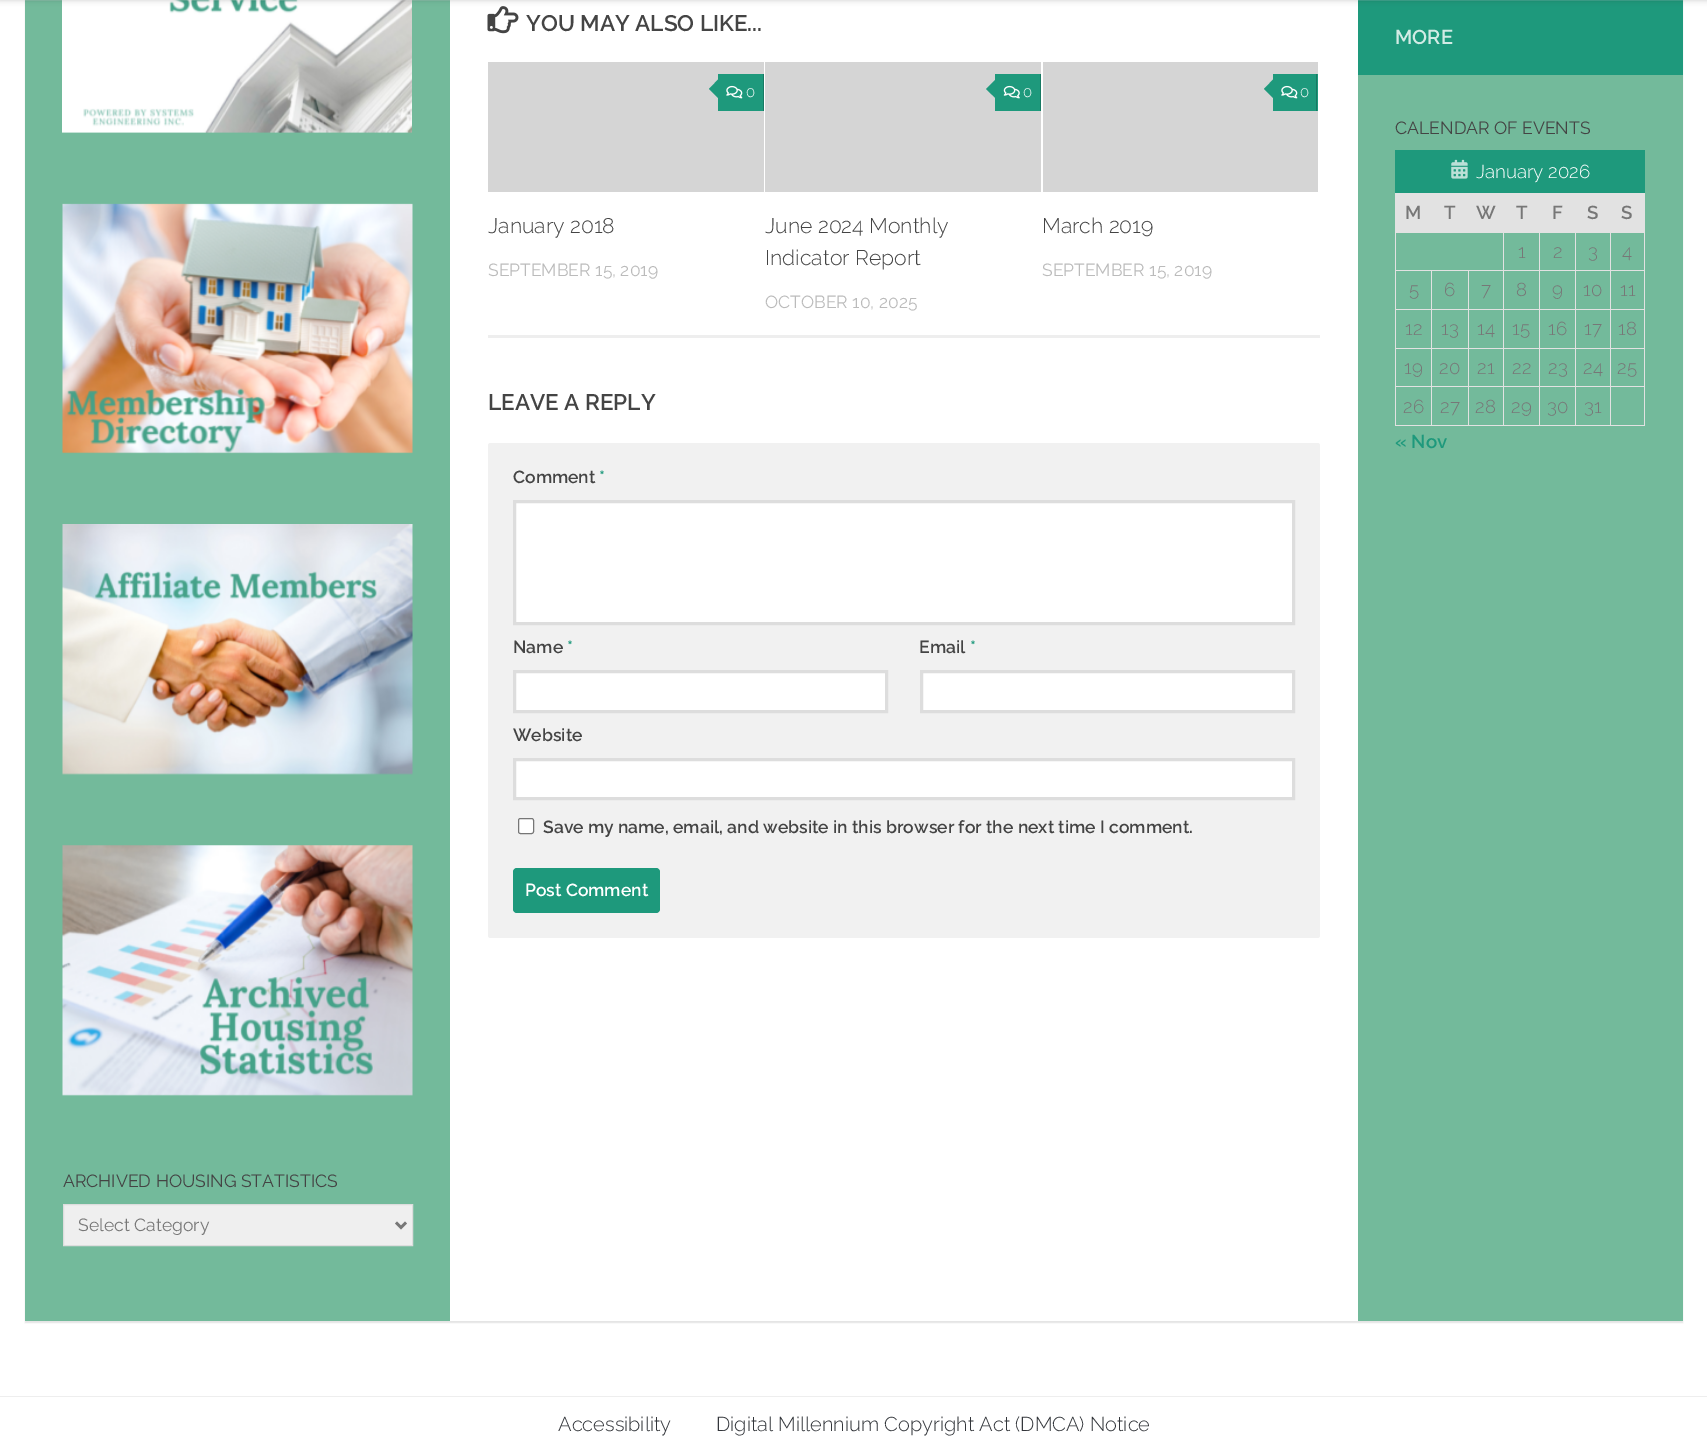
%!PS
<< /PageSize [1707 1442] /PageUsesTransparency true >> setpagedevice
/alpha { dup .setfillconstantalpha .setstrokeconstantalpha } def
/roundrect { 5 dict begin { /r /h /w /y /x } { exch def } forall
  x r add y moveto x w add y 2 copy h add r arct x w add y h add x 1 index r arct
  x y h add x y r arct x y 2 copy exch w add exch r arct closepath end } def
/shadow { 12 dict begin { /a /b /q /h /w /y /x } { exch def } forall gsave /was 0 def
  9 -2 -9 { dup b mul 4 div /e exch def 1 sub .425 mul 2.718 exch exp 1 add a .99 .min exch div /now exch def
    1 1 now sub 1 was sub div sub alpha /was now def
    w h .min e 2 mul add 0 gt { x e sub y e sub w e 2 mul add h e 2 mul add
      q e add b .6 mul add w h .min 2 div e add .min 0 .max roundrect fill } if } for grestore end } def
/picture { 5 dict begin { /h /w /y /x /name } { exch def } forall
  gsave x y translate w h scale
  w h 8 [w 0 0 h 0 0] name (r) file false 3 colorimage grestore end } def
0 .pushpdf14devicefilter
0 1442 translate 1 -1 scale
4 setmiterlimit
1 setgray
0 0 1707 1442 rectfill
0 setgray
25 -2 1658 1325 0 0.5 0.1 shadow
1 setgray
450 0 908 1321 rectfill
0.451 0.729 0.608 setrgbcolor
25 0 425 1321 rectfill
0.118 0.6 0.486 setrgbcolor
1358 0 325 75 rectfill
(img5.rgb) 62 0 350 133 picture
0.15 alpha
1 setgray
newpath 0 0 moveto 0 1 lineto 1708 1 lineto 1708 -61 lineto 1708 0 lineto closepath fill
1 alpha
(img1.rgb) 487 6 32 28 picture
0 setgray
0 -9 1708 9 0 3 0.2 shadow
/Raleway-SemiBold [22.5 0 0 -22.5 0 0] selectfont
0.267 setgray
526 31 moveto (YOU MAY ALSO LIKE...) show
0.933 setgray
488 335 832 3 rectfill
0.835 setgray
488 62 276 130 rectfill
0.118 0.6 0.486 setrgbcolor
718 74 45 37 rectfill
0.094 0.478 0.388 setrgbcolor
763 74 1 37 rectfill
0.118 0.6 0.486 setrgbcolor
newpath 720 77.5 moveto 720 100 lineto 709 89 lineto closepath fill
(img2.rgb) 726 85 17 14 picture
/Raleway-Light [15 0 0 -15 0 0] selectfont
1 setgray
746 97 moveto (0) show
/Raleway-Light [21.25 0 0 -21.25 0 0] selectfont
0.267 setgray
488 233 moveto (January 2018) show
/Raleway-Regular [17.5 0 0 -17.5 0 0] selectfont
0.733 setgray
488 276 moveto (SEPTEMBER 15, 2019) show
0.835 setgray
765 62 276 130 rectfill
0.118 0.6 0.486 setrgbcolor
995 74 45 37 rectfill
0.094 0.478 0.388 setrgbcolor
1040 74 1 37 rectfill
0.118 0.6 0.486 setrgbcolor
newpath 997.5 77.5 moveto 997.5 100 lineto 986 89 lineto closepath fill
(img3.rgb) 1003 85 17 14 picture
/Raleway-Light [15 0 0 -15 0 0] selectfont
1 setgray
1023 97 moveto (0) show
/Raleway-Light [21.25 0 0 -21.25 0 0] selectfont
0.267 setgray
765 233 moveto (June 2024 Monthly) show
765 265 moveto (Indicator Report) show
/Raleway-Regular [17.5 0 0 -17.5 0 0] selectfont
0.733 setgray
765 308 moveto (OCTOBER 10, 2025) show
0.835 setgray
1043 62 275 130 rectfill
0.118 0.6 0.486 setrgbcolor
1273 74 45 37 rectfill
0.094 0.478 0.388 setrgbcolor
1316 74 1 37 rectfill
0.118 0.6 0.486 setrgbcolor
newpath 1275 77.5 moveto 1275 100 lineto 1264 89 lineto closepath fill
(img2.rgb) 1281 85 17 14 picture
/Raleway-Light [15 0 0 -15 0 0] selectfont
1 setgray
1300 97 moveto (0) show
/Raleway-Light [21.25 0 0 -21.25 0 0] selectfont
0.267 setgray
1042 233 moveto (March 2019) show
/Raleway-Regular [17.5 0 0 -17.5 0 0] selectfont
0.733 setgray
1042 276 moveto (SEPTEMBER 15, 2019) show
/Raleway-SemiBold [22.5 0 0 -22.5 0 0] selectfont
0.267 setgray
488 410 moveto (LEAVE A REPLY) show
0.945 setgray
488 443 832 495 2.5 roundrect fill
/Raleway-SemiBold [17.5 0 0 -17.5 0 0] selectfont
0.267 setgray
513 483 moveto (Comment) show
0.118 0.6 0.486 setrgbcolor
599 483 moveto (*) show
1 setgray
newpath 514.5 501.5 moveto 1293.5 501.5 lineto 1293.5 623.5 lineto 514.5 623.5 lineto closepath gsave fill grestore
0.867 setgray
3 setlinewidth
stroke
0.267 setgray
513 653 moveto (Name) show
0.118 0.6 0.486 setrgbcolor
567 653 moveto (*) show
1 setgray
newpath 514.5 671.5 moveto 886.5 671.5 lineto 886.5 711.5 lineto 514.5 711.5 lineto closepath gsave fill grestore
0.867 setgray
stroke
0.267 setgray
919 653 moveto (Email) show
0.118 0.6 0.486 setrgbcolor
970 653 moveto (*) show
1 setgray
newpath 921.5 671.5 moveto 1293.5 671.5 lineto 1293.5 711.5 lineto 921.5 711.5 lineto closepath gsave fill grestore
0.867 setgray
stroke
0.267 setgray
513 741 moveto (Website) show
1 setgray
newpath 514.5 759.5 moveto 1293.5 759.5 lineto 1293.5 798.5 lineto 514.5 798.5 lineto closepath gsave fill grestore
0.867 setgray
stroke
1 setgray
518.5 818.5 15 15 2 roundrect gsave fill grestore
0.463 setgray
1 setlinewidth
stroke
0.267 setgray
543 833 moveto (Save my name, email, and website in this browser for the next time I comment.) show
0.118 0.6 0.486 setrgbcolor
513 868 147 45 4 roundrect fill
1 setgray
525 896 moveto (Post Comment) show
/Raleway-SemiBold [20 0 0 -20 0 0] selectfont
0.824 0.922 0.898 setrgbcolor
1395 44 moveto (MORE) show
0.451 0.729 0.608 setrgbcolor
1358 75 325 1246 rectfill
/Raleway-Regular [17.6 0 0 -17.6 0 0] selectfont
0.267 setgray
1395 134 moveto (CALENDAR OF EVENTS) show
0.118 0.6 0.486 setrgbcolor
1395 150 250 43 rectfill
(img4.rgb) 1451 159 17 20 picture
/Raleway-Light [18.75 0 0 -18.75 0 0] selectfont
1 setgray
1476 178 moveto (January 2026) show
0.886 setgray
1396 194 249 39 rectfill
1395 193 250 1 rectfill
1610 270 35 1 rectfill
1610 309 35 1 rectfill
1610 348 35 1 rectfill
1610 386 35 1 rectfill
1644 386 1 40 rectfill
1610 425 35 1 rectfill
1610 386 1 40 rectfill
1575 386 36 1 rectfill
1610 348 1 40 rectfill
1575 348 36 1 rectfill
1610 309 1 40 rectfill
1575 309 36 1 rectfill
1610 270 1 40 rectfill
1575 270 36 1 rectfill
1575 425 36 1 rectfill
1575 386 1 40 rectfill
1539 386 37 1 rectfill
1575 348 1 40 rectfill
1539 348 37 1 rectfill
1575 309 1 40 rectfill
1539 309 37 1 rectfill
1575 270 1 40 rectfill
1539 270 37 1 rectfill
1539 425 37 1 rectfill
1539 386 1 40 rectfill
1503 386 37 1 rectfill
1539 348 1 40 rectfill
1503 348 37 1 rectfill
1539 309 1 40 rectfill
1503 309 37 1 rectfill
1539 270 1 40 rectfill
1503 270 37 1 rectfill
1503 425 37 1 rectfill
1503 386 1 40 rectfill
1468 386 36 1 rectfill
1503 348 1 40 rectfill
1468 348 36 1 rectfill
1503 309 1 40 rectfill
1468 309 36 1 rectfill
1503 270 1 40 rectfill
1468 270 36 1 rectfill
1468 425 36 1 rectfill
1468 386 1 40 rectfill
1431 386 38 1 rectfill
1468 348 1 40 rectfill
1431 348 38 1 rectfill
1468 309 1 40 rectfill
1431 309 38 1 rectfill
1468 270 1 40 rectfill
1431 270 38 1 rectfill
1431 425 38 1 rectfill
1431 386 1 40 rectfill
1395 386 38 1 rectfill
1431 348 1 40 rectfill
1395 348 38 1 rectfill
1431 309 1 40 rectfill
1395 309 38 1 rectfill
1431 270 1 40 rectfill
1395 270 38 1 rectfill
1395 425 38 1 rectfill
1395 386 1 40 rectfill
1395 348 1 40 rectfill
1395 309 1 40 rectfill
1395 270 1 40 rectfill
1395 231 1 40 rectfill
1395 193 1 40 rectfill
/Raleway-SemiBold [18.75 0 0 -18.75 0 0] selectfont
0.467 setgray
1405 219 moveto (M) show
1444 219 moveto (T) show
1476 219 moveto (W) show
1516 219 moveto (T) show
1552 219 moveto (F) show
1587 219 moveto (S) show
1621 219 moveto (S) show
0.886 setgray
1503 231 1 40 rectfill
/Raleway-Light [18.75 0 0 -18.75 0 0] selectfont
0.467 setgray
1518 258 moveto (1) show
0.886 setgray
1539 231 1 40 rectfill
0.467 setgray
1553 258 moveto (2) show
0.886 setgray
1575 231 1 40 rectfill
0.467 setgray
1588 258 moveto (3) show
0.886 setgray
1610 231 1 40 rectfill
0.467 setgray
1622 258 moveto (4) show
1409 296 moveto (5) show
1444 296 moveto (6) show
1481 296 moveto (7) show
1516 296 moveto (8) show
1552 296 moveto (9) show
1583 296 moveto (10) show
0.886 setgray
1644 348 1 40 rectfill
1644 309 1 40 rectfill
1644 231 1 79 rectfill
0.467 setgray
1620 296 moveto (11) show
1405 335 moveto (12) show
1441 335 moveto (13) show
1477 335 moveto (14) show
1512 335 moveto (15) show
1548 335 moveto (16) show
1584 335 moveto (17) show
1618 335 moveto (18) show
1404 374 moveto (19) show
1439 374 moveto (20) show
1477 374 moveto (21) show
1512 374 moveto (22) show
1548 374 moveto (23) show
1583 374 moveto (24) show
1617 374 moveto (25) show
1403 413 moveto (26) show
1440 413 moveto (27) show
1475 413 moveto (28) show
1511 413 moveto (29) show
1547 413 moveto (30) show
1584 413 moveto (31) show
/Raleway-SemiBold [18.75 0 0 -18.75 0 0] selectfont
0.118 0.6 0.486 setrgbcolor
1395 448 moveto (« Nov) show
(img6.rgb) 62 203 351 251 picture
(img7.rgb) 62 524 351 251 picture
(img8.rgb) 62 845 351 251 picture
/Raleway-Regular [17.6 0 0 -17.6 0 0] selectfont
0.267 setgray
63 1187 moveto (ARCHIVED HOUSING STATISTICS) show
0.937 setgray
newpath 63.5 1204.5 moveto 412.5 1204.5 lineto 412.5 1245.5 lineto 63.5 1245.5 lineto closepath gsave fill grestore
0.867 setgray
stroke
0.467 setgray
2.5 setlinewidth
newpath 396 1222.5 moveto 401 1227.5 lineto 406 1222.5 lineto stroke
78 1231 moveto (Select Category) show
0.933 setgray
0 1396 1707 1 rectfill
/Raleway-Light [20 0 0 -20 0 0] selectfont
0.2 0.212 0.231 setrgbcolor
558 1431 moveto (Accessibility) show
716 1431 moveto (Digital Millennium Copyright Act \(DMCA\) Notice) show
.poppdf14devicefilter showpage
